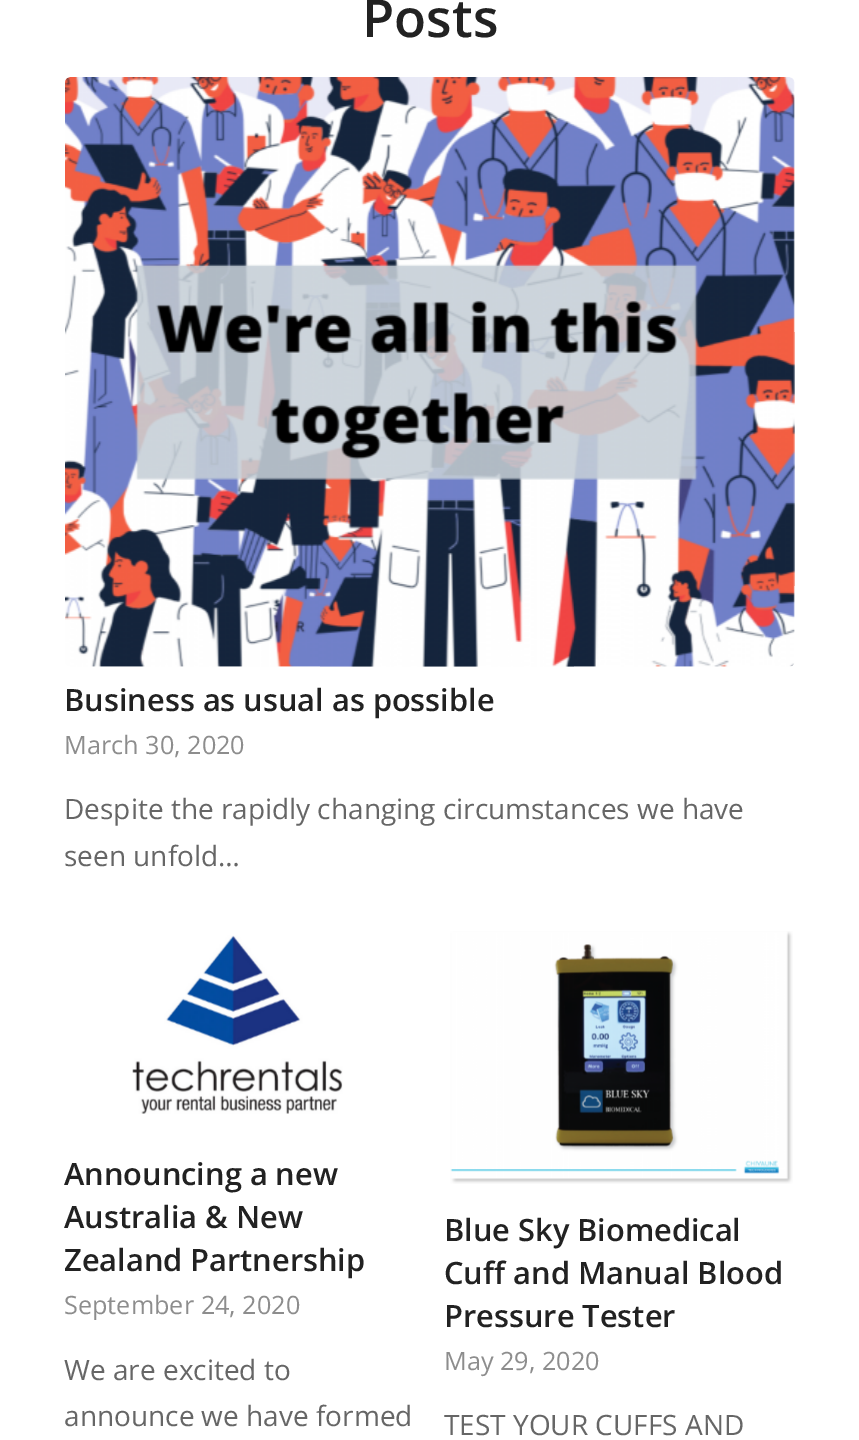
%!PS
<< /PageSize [859 1440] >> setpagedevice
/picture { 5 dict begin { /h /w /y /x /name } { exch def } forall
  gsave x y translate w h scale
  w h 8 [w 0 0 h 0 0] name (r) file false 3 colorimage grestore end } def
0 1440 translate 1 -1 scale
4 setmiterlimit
1 setgray
0 0 859 1440 rectfill
/OpenSans-SemiBold [52.5 0 0 -52.5 0 0] selectfont
0.133 setgray
362 37 moveto (Posts) show
(img1.rgb) 65 77 730 590 picture
/OpenSans-SemiBold [30.75 0 0 -30.75 0 0] selectfont
64 711 moveto (Business as usual as possible) show
/OpenSans-Regular [25.25 0 0 -25.25 0 0] selectfont
0.553 setgray
64 754 moveto (March 30, 2020) show
/OpenSans-Regular [28 0 0 -28 0 0] selectfont
0.4 setgray
64 819 moveto (Despite the rapidly changing circumstances we have) show
64 866 moveto (seen unfold…) show
(img2.rgb) 132 935 211 179 picture
/OpenSans-SemiBold [30.75 0 0 -30.75 0 0] selectfont
0.133 setgray
64 1185 moveto (Announcing a new) show
64 1228 moveto (Australia & New) show
64 1271 moveto (Zealand Partnership) show
/OpenSans-Regular [25.25 0 0 -25.25 0 0] selectfont
0.553 setgray
64 1314 moveto (September 24, 2020) show
/OpenSans-Regular [28 0 0 -28 0 0] selectfont
0.4 setgray
64 1380 moveto (We are excited to) show
64 1426 moveto (announce we have formed) show
(img3.rgb) 450 931 343 253 picture
/OpenSans-SemiBold [30.75 0 0 -30.75 0 0] selectfont
0.133 setgray
444 1241 moveto (Blue Sky Biomedical) show
444 1284 moveto (Cuff and Manual Blood) show
444 1327 moveto (Pressure Tester) show
/OpenSans-Regular [25.25 0 0 -25.25 0 0] selectfont
0.553 setgray
444 1370 moveto (May 29, 2020) show
/OpenSans-Regular [28 0 0 -28 0 0] selectfont
0.4 setgray
444 1435 moveto (TEST YOUR CUFFS AND) show
showpage
